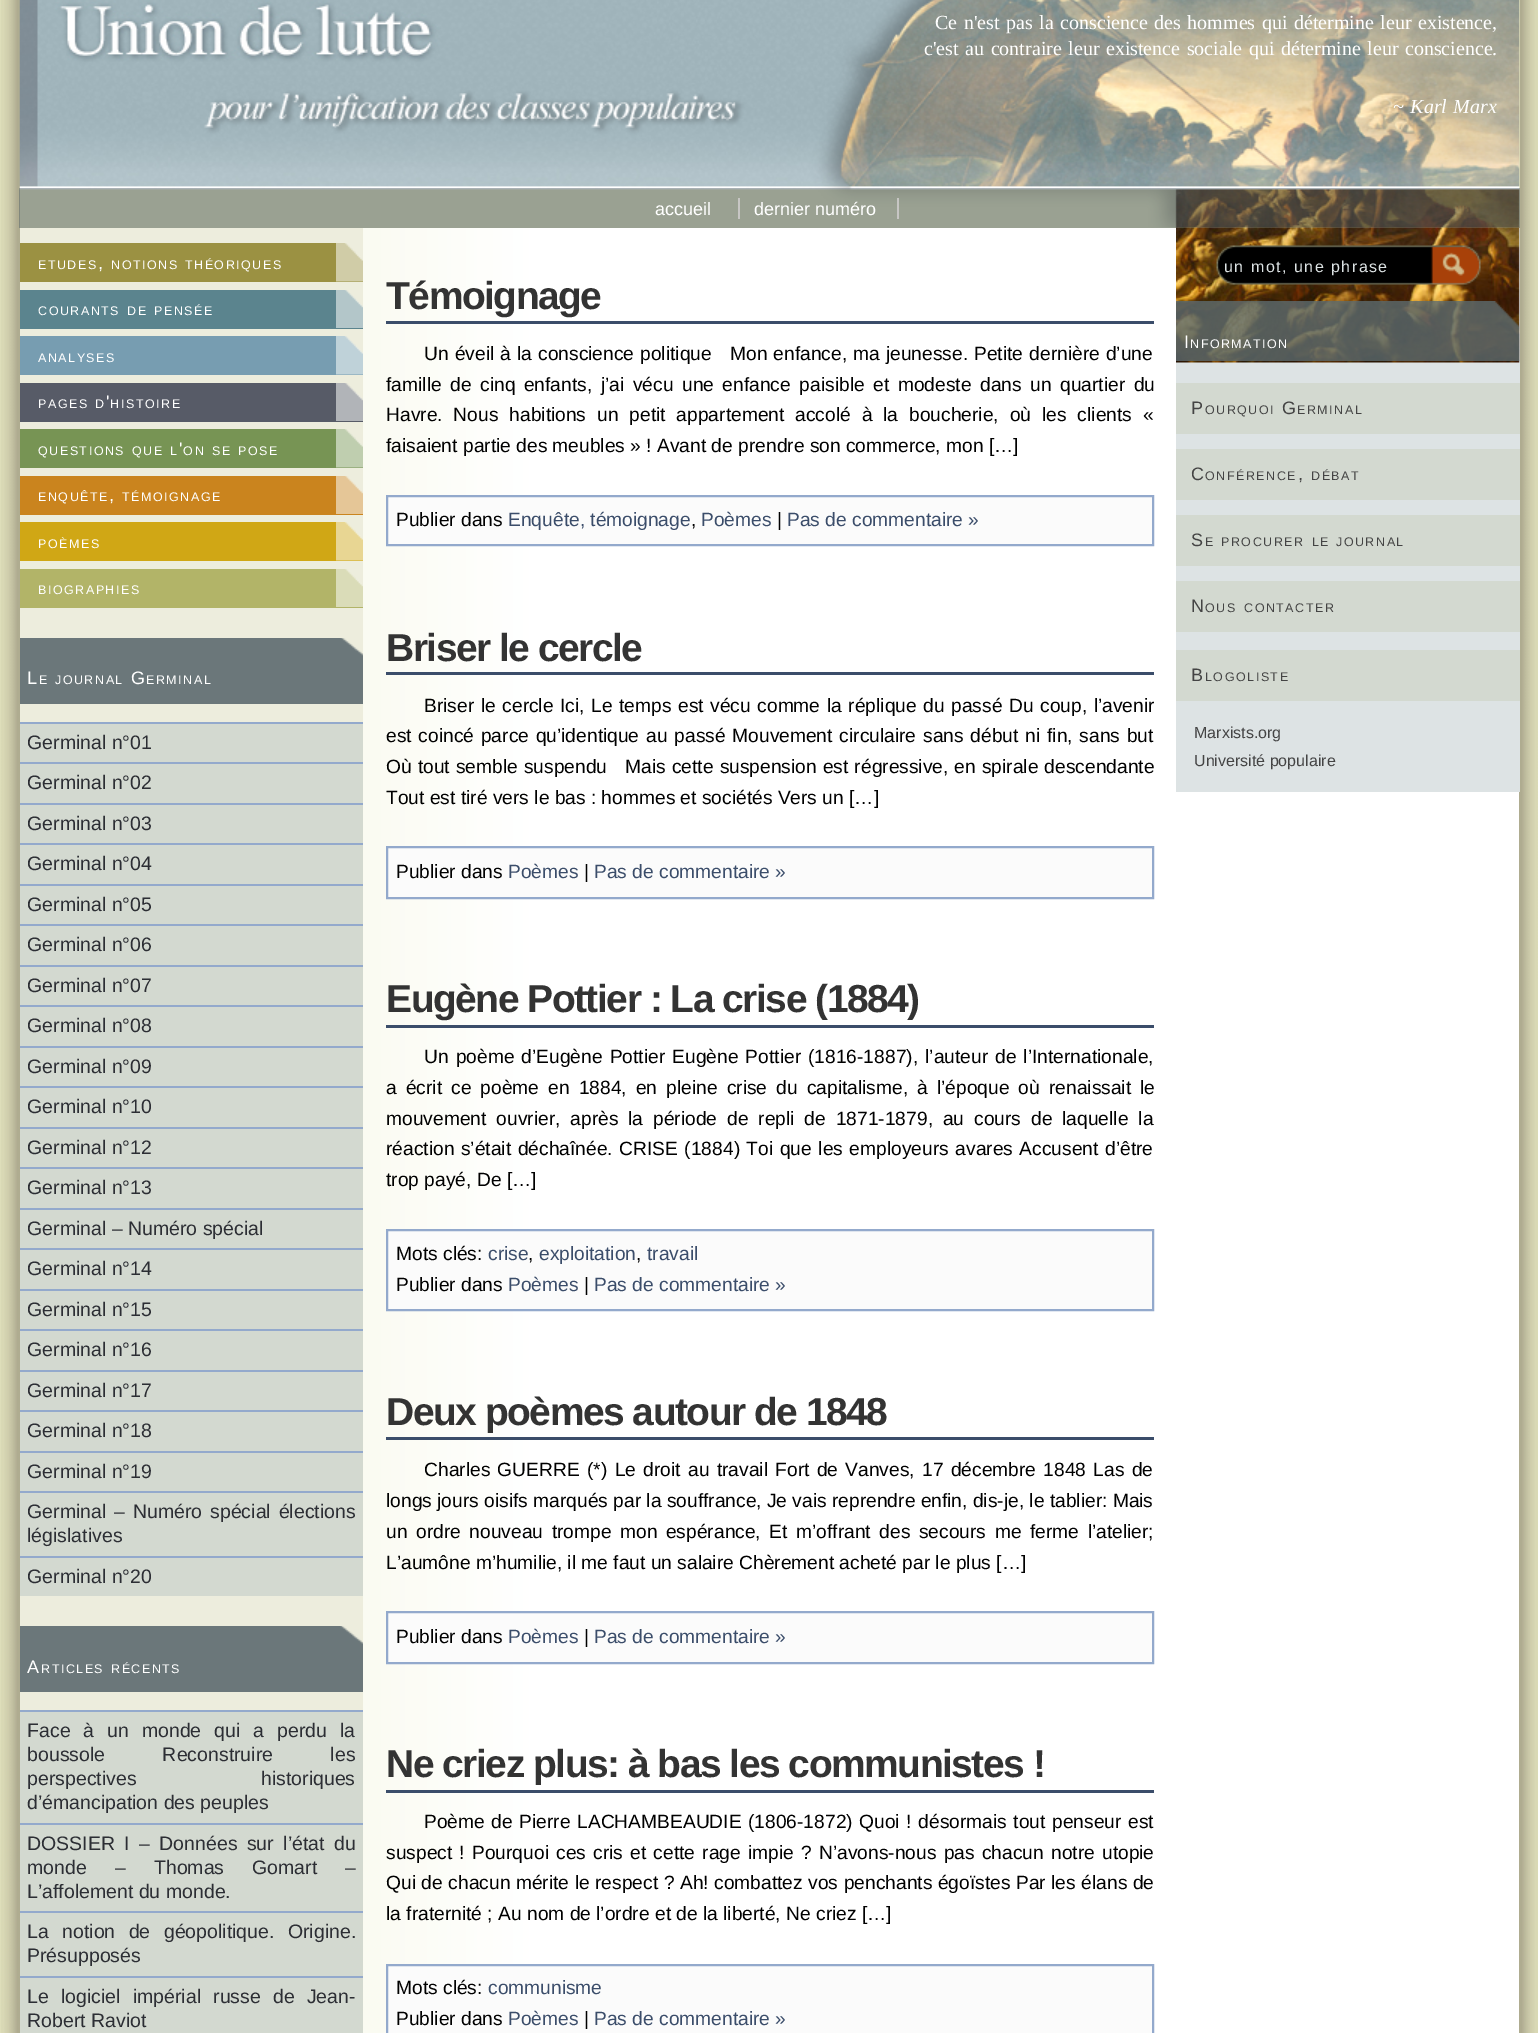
%!PS
<< /PageSize [1538 2033] /PageUsesTransparency true >> setpagedevice
/alpha { dup .setfillconstantalpha .setstrokeconstantalpha } def
/picture { 5 dict begin { /h /w /y /x /name } { exch def } forall
  gsave x y translate w h scale
  w h 8 [w 0 0 h 0 0] name (r) file false 3 colorimage grestore end } def
0 .pushpdf14devicefilter
0 2033 translate 1 -1 scale
4 setmiterlimit
0.871 0.871 0.729 setrgbcolor
0 0 1538 2033 rectfill
(img1.rgb) 1 0 1537 2033 picture
0.686 0.675 0.565 setrgbcolor
2 setlinewidth
19 -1 1501 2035 rectstroke
0.871 0.871 0.729 setrgbcolor
20 0 1500 228 rectfill
(img2.rgb) 19 0 1501 228 picture
/LiberationSerif-Regular [20 0 0 -20 0 0] selectfont
1 setgray
935 29 moveto 1.5 0 32 (Ce n'est pas la conscience des hommes qui détermine leur existence,) widthshow
924 55 moveto 1.5 0 32 (c'est au contraire leur existence sociale qui détermine leur conscience.) widthshow
/LiberationSerif-Italic [20 0 0 -20 0 0] selectfont
1393 113 moveto 1.5 0 32 (~ Karl Marx) widthshow
0.48 alpha
0.31 0.369 0.4 setrgbcolor
19 188 1501 40 rectfill
/LiberationSans-Regular [18 0 0 -18 0 0] selectfont
1 alpha
1 setgray
655 215 moveto (accueil) show
754 215 moveto (dernier numéro) show
0.78 0.776 0.769 setrgbcolor
738 198 2 21 rectfill
897 198 2 21 rectfill
0.929 0.929 0.867 setrgbcolor
20 608 343 1102 rectfill
0.608 0.569 0.259 setrgbcolor
20 243 343 39 rectfill
(img3.rgb) 336 243 27 39 picture
0.929 0.929 0.867 setrgbcolor
20 228 343 15 rectfill
/LiberationSans-Regular [12.5 0 0 -12.5 0 0] selectfont
1 setgray
38 269 moveto 1.5 0 (ETUDES) ashow
/LiberationSans-Regular [18 0 0 -18 0 0] selectfont
98 269 moveto 1.5 0 (,) ashow
/LiberationSans-Regular [12.5 0 0 -12.5 0 0] selectfont
111 269 moveto 1.5 0 (NOTIONS) ashow
185 269 moveto 1.5 0 (THÉORIQUES) ashow
0.357 0.518 0.557 setrgbcolor
20 290 343 39 rectfill
(img4.rgb) 336 290 27 38 picture
0.929 0.929 0.867 setrgbcolor
20 282 343 8 rectfill
1 setgray
38 315 moveto 1.5 0 (COURANTS) ashow
127 315 moveto 1.5 0 (DE) ashow
154 315 moveto 1.5 0 (PENSÉE) ashow
0.467 0.616 0.694 setrgbcolor
20 336 343 39 rectfill
(img5.rgb) 336 336 27 39 picture
0.929 0.929 0.867 setrgbcolor
20 329 343 7 rectfill
1 setgray
38 362 moveto 1.5 0 (ANALYSES) ashow
0.341 0.357 0.404 setrgbcolor
20 383 343 39 rectfill
(img6.rgb) 336 383 27 38 picture
0.929 0.929 0.867 setrgbcolor
20 375 343 8 rectfill
/LiberationSans-Regular [18 0 0 -18 0 0] selectfont
1 setgray
106 408 moveto 1.5 0 (') ashow
/LiberationSans-Regular [12.5 0 0 -12.5 0 0] selectfont
38 408 moveto 1.5 0 (PAGES) ashow
95 408 moveto 1.5 0 (D HISTOIRE) ashow
0.467 0.58 0.329 setrgbcolor
20 429 343 39 rectfill
(img7.rgb) 336 429 27 39 picture
0.929 0.929 0.867 setrgbcolor
20 422 343 7 rectfill
/LiberationSans-Regular [18 0 0 -18 0 0] selectfont
1 setgray
179 455 moveto 1.5 0 (') ashow
/LiberationSans-Regular [12.5 0 0 -12.5 0 0] selectfont
38 455 moveto 1.5 0 (QUESTIONS) ashow
132 455 moveto 1.5 0 (QUE) ashow
170 455 moveto 1.5 0 (L ON) ashow
212 455 moveto 1.5 0 (SE) ashow
238 455 moveto 1.5 0 (POSE) ashow
0.792 0.518 0.118 setrgbcolor
20 476 343 39 rectfill
(img8.rgb) 336 476 27 38 picture
0.929 0.929 0.867 setrgbcolor
20 468 343 8 rectfill
1 setgray
38 501 moveto 1.5 0 (ENQUÊTE) ashow
/LiberationSans-Regular [18 0 0 -18 0 0] selectfont
109 501 moveto 1.5 0 (,) ashow
/LiberationSans-Regular [12.5 0 0 -12.5 0 0] selectfont
122 501 moveto 1.5 0 (TÉMOIGNAGE) ashow
0.816 0.655 0.082 setrgbcolor
20 522 343 39 rectfill
(img9.rgb) 336 522 27 39 picture
0.929 0.929 0.867 setrgbcolor
20 515 343 7 rectfill
1 setgray
38 548 moveto 1.5 0 (POÈMES) ashow
0.698 0.706 0.408 setrgbcolor
20 569 343 39 rectfill
(img10.rgb) 336 569 27 38 picture
0.929 0.929 0.867 setrgbcolor
20 561 343 8 rectfill
1 setgray
38 594 moveto 1.5 0 (BIOGRAPHIES) ashow
0.42 0.467 0.478 setrgbcolor
20 638 343 66 rectfill
(img11.rgb) 340 638 23 18 picture
/LiberationSans-Regular [18 0 0 -18 0 0] selectfont
1 setgray
27 684 moveto 1.5 0 (L) ashow
/LiberationSans-Regular [12.5 0 0 -12.5 0 0] selectfont
39 684 moveto 1.5 0 (E) ashow
55 684 moveto 1.5 0 (JOURNAL) ashow
/LiberationSans-Regular [18 0 0 -18 0 0] selectfont
131 684 moveto 1.5 0 (G) ashow
/LiberationSans-Regular [12.5 0 0 -12.5 0 0] selectfont
146 684 moveto 1.5 0 (ERMINAL) ashow
0.827 0.851 0.816 setrgbcolor
20 724 343 38 rectfill
0.576 0.663 0.8 setrgbcolor
20 722 343 2 rectfill
/LiberationSans-Regular [19.5 0 0 -19.5 0 0] selectfont
0.173 0.18 0.204 setrgbcolor
27 749 moveto (Germinal n°01) show
0.827 0.851 0.816 setrgbcolor
20 764 343 39 rectfill
0.576 0.663 0.8 setrgbcolor
20 762 343 2 rectfill
0.173 0.18 0.204 setrgbcolor
27 789 moveto (Germinal n°02) show
0.827 0.851 0.816 setrgbcolor
20 805 343 38 rectfill
0.576 0.663 0.8 setrgbcolor
20 803 343 2 rectfill
0.173 0.18 0.204 setrgbcolor
27 830 moveto (Germinal n°03) show
0.827 0.851 0.816 setrgbcolor
20 845 343 39 rectfill
0.576 0.663 0.8 setrgbcolor
20 843 343 2 rectfill
0.173 0.18 0.204 setrgbcolor
27 870 moveto (Germinal n°04) show
0.827 0.851 0.816 setrgbcolor
20 886 343 38 rectfill
0.576 0.663 0.8 setrgbcolor
20 884 343 2 rectfill
0.173 0.18 0.204 setrgbcolor
27 911 moveto (Germinal n°05) show
0.827 0.851 0.816 setrgbcolor
20 926 343 39 rectfill
0.576 0.663 0.8 setrgbcolor
20 924 343 2 rectfill
0.173 0.18 0.204 setrgbcolor
27 951 moveto (Germinal n°06) show
0.827 0.851 0.816 setrgbcolor
20 967 343 38 rectfill
0.576 0.663 0.8 setrgbcolor
20 965 343 2 rectfill
0.173 0.18 0.204 setrgbcolor
27 992 moveto (Germinal n°07) show
0.827 0.851 0.816 setrgbcolor
20 1007 343 39 rectfill
0.576 0.663 0.8 setrgbcolor
20 1005 343 2 rectfill
0.173 0.18 0.204 setrgbcolor
27 1032 moveto (Germinal n°08) show
0.827 0.851 0.816 setrgbcolor
20 1048 343 38 rectfill
0.576 0.663 0.8 setrgbcolor
20 1046 343 2 rectfill
0.173 0.18 0.204 setrgbcolor
27 1073 moveto (Germinal n°09) show
0.827 0.851 0.816 setrgbcolor
20 1088 343 39 rectfill
0.576 0.663 0.8 setrgbcolor
20 1086 343 2 rectfill
0.173 0.18 0.204 setrgbcolor
27 1113 moveto (Germinal n°10) show
0.827 0.851 0.816 setrgbcolor
20 1129 343 38 rectfill
0.576 0.663 0.8 setrgbcolor
20 1127 343 2 rectfill
0.173 0.18 0.204 setrgbcolor
27 1154 moveto (Germinal n°12) show
0.827 0.851 0.816 setrgbcolor
20 1169 343 39 rectfill
0.576 0.663 0.8 setrgbcolor
20 1167 343 2 rectfill
0.173 0.18 0.204 setrgbcolor
27 1194 moveto (Germinal n°13) show
0.827 0.851 0.816 setrgbcolor
20 1210 343 38 rectfill
0.576 0.663 0.8 setrgbcolor
20 1208 343 2 rectfill
0.173 0.18 0.204 setrgbcolor
27 1235 moveto (Germinal – Numéro spécial) show
0.827 0.851 0.816 setrgbcolor
20 1250 343 39 rectfill
0.576 0.663 0.8 setrgbcolor
20 1248 343 2 rectfill
0.173 0.18 0.204 setrgbcolor
27 1275 moveto (Germinal n°14) show
0.827 0.851 0.816 setrgbcolor
20 1291 343 38 rectfill
0.576 0.663 0.8 setrgbcolor
20 1289 343 2 rectfill
0.173 0.18 0.204 setrgbcolor
27 1316 moveto (Germinal n°15) show
0.827 0.851 0.816 setrgbcolor
20 1331 343 39 rectfill
0.576 0.663 0.8 setrgbcolor
20 1329 343 2 rectfill
0.173 0.18 0.204 setrgbcolor
27 1356 moveto (Germinal n°16) show
0.827 0.851 0.816 setrgbcolor
20 1372 343 38 rectfill
0.576 0.663 0.8 setrgbcolor
20 1370 343 2 rectfill
0.173 0.18 0.204 setrgbcolor
27 1397 moveto (Germinal n°17) show
0.827 0.851 0.816 setrgbcolor
20 1412 343 39 rectfill
0.576 0.663 0.8 setrgbcolor
20 1410 343 2 rectfill
0.173 0.18 0.204 setrgbcolor
27 1437 moveto (Germinal n°18) show
0.827 0.851 0.816 setrgbcolor
20 1453 343 38 rectfill
0.576 0.663 0.8 setrgbcolor
20 1451 343 2 rectfill
0.173 0.18 0.204 setrgbcolor
27 1478 moveto (Germinal n°19) show
0.827 0.851 0.816 setrgbcolor
20 1493 343 63 rectfill
0.576 0.663 0.8 setrgbcolor
20 1491 343 2 rectfill
0.173 0.18 0.204 setrgbcolor
27 1518 moveto 2.5 0 32 (Germinal – Numéro spécial élections) widthshow
27 1542 moveto (législatives) show
0.827 0.851 0.816 setrgbcolor
20 1558 343 38 rectfill
0.576 0.663 0.8 setrgbcolor
20 1556 343 2 rectfill
0.173 0.18 0.204 setrgbcolor
27 1583 moveto (Germinal n°20) show
0.42 0.467 0.478 setrgbcolor
20 1626 343 66 rectfill
(img12.rgb) 340 1626 23 18 picture
/LiberationSans-Regular [18 0 0 -18 0 0] selectfont
1 setgray
27 1673 moveto 1.5 0 (A) ashow
/LiberationSans-Regular [12.5 0 0 -12.5 0 0] selectfont
41 1673 moveto 1.5 0 (RTICLES) ashow
111 1673 moveto 1.5 0 (RÉCENTS) ashow
0.827 0.851 0.816 setrgbcolor
20 1712 343 111 rectfill
0.576 0.663 0.8 setrgbcolor
20 1710 343 2 rectfill
/LiberationSans-Regular [19.5 0 0 -19.5 0 0] selectfont
0.173 0.18 0.204 setrgbcolor
27 1737 moveto 7.5 0 32 (Face à un monde qui a perdu la) widthshow
27 1761 moveto 52 0 32 (boussole Reconstruire les) widthshow
27 1785 moveto 119 0 32 (perspectives historiques) widthshow
27 1809 moveto (d’émancipation des peuples) show
0.827 0.851 0.816 setrgbcolor
20 1825 343 86 rectfill
0.576 0.663 0.8 setrgbcolor
20 1823 343 2 rectfill
0.173 0.18 0.204 setrgbcolor
27 1850 moveto 4 0 32 (DOSSIER I – Données sur l’état du) widthshow
27 1874 moveto (monde) show
115 1874 moveto 22.5 0 32 (– Thomas Gomart –) widthshow
27 1898 moveto (L’affolement du monde.) show
0.827 0.851 0.816 setrgbcolor
20 1913 343 63 rectfill
0.576 0.663 0.8 setrgbcolor
20 1911 343 2 rectfill
0.173 0.18 0.204 setrgbcolor
27 1938 moveto 8 0 32 (La notion de géopolitique. Origine.) widthshow
27 1962 moveto (Présupposés) show
0.827 0.851 0.816 setrgbcolor
20 1978 343 55 rectfill
0.576 0.663 0.8 setrgbcolor
20 1976 343 2 rectfill
0.173 0.18 0.204 setrgbcolor
27 2003 moveto 6.75 0 32 (Le logiciel impérial russe de Jean-) widthshow
27 2027 moveto (Robert Raviot) show
0.231 0.302 0.416 setrgbcolor
386 321 768 3 rectfill
gsave
386 228 768 351 rectclip
/LiberationSans-Bold [39 0 0 -39 0 0] selectfont
0.2 setgray
386 309 moveto -1.5 0 (Témoignage) ashow
grestore
/LiberationSans-Regular [19.2 0 0 -19.2 0 0] selectfont
0 setgray
424 360 moveto 0.75 0 32 (Un éveil à la conscience politique   Mon enfance, ma jeunesse. Petite dernière d’une) widthshow
386 391 moveto 3.25 0 32 (famille de cinq enfants, j’ai vécu une enfance paisible et modeste dans un quartier du) widthshow
386 421 moveto 5.6 0 32 (Havre. Nous habitions un petit appartement accolé à la boucherie, où les clients «) widthshow
386 452 moveto (faisaient partie des meubles » ! Avant de prendre son commerce, mon […]) show
0.984 setgray
newpath 387 496 moveto 1153 496 lineto 1153 545 lineto 387 545 lineto closepath gsave fill grestore
0.576 0.663 0.8 setrgbcolor
stroke
0 setgray
396 526 moveto (Publier dans) show
0.231 0.302 0.416 setrgbcolor
508 526 moveto (Enquête, témoignage) show
0 setgray
691 526 moveto (,) show
0.231 0.302 0.416 setrgbcolor
701 526 moveto (Poèmes) show
0 setgray
777 526 moveto (|) show
0.231 0.302 0.416 setrgbcolor
787 526 moveto (Pas de commentaire ») show
386 672 768 3 rectfill
/LiberationSans-Bold [39 0 0 -39 0 0] selectfont
0.2 setgray
386 661 moveto -1.5 0 (Briser le cercle) ashow
/LiberationSans-Regular [19.2 0 0 -19.2 0 0] selectfont
0 setgray
424 712 moveto 1.25 0 32 (Briser le cercle Ici, Le temps est vécu comme la réplique du passé Du coup, l’avenir) widthshow
386 742 moveto 1.5 0 32 (est coincé parce qu’identique au passé Mouvement circulaire sans début ni fin, sans but) widthshow
386 773 moveto 0.75 0 32 (Où tout semble suspendu   Mais cette suspension est régressive, en spirale descendante) widthshow
386 804 moveto (Tout est tiré vers le bas : hommes et sociétés Vers un […]) show
0.984 setgray
newpath 387 847 moveto 1153 847 lineto 1153 898 lineto 387 898 lineto closepath gsave fill grestore
0.576 0.663 0.8 setrgbcolor
stroke
0 setgray
396 878 moveto (Publier dans) show
0.231 0.302 0.416 setrgbcolor
508 878 moveto (Poèmes) show
0 setgray
584 878 moveto (|) show
0.231 0.302 0.416 setrgbcolor
594 878 moveto (Pas de commentaire ») show
386 1025 768 3 rectfill
/LiberationSans-Bold [39 0 0 -39 0 0] selectfont
0.2 setgray
386 1012 moveto -1.5 0 (Eugène Pottier : La crise \(1884\)) ashow
/LiberationSans-Regular [19.2 0 0 -19.2 0 0] selectfont
0 setgray
424 1063 moveto 1.75 0 32 (Un poème d’Eugène Pottier Eugène Pottier \(1816-1887\), l’auteur de l’Internationale,) widthshow
386 1094 moveto 3.75 0 32 (a écrit ce poème en 1884, en pleine crise du capitalisme, à l’époque où renaissait le) widthshow
386 1125 moveto 4.6 0 32 (mouvement ouvrier, après la période de repli de 1871-1879, au cours de laquelle la) widthshow
386 1155 moveto 1.25 0 32 (réaction s’était déchaînée. CRISE \(1884\) Toi que les employeurs avares Accusent d’être) widthshow
386 1186 moveto (trop payé, De […]) show
0.984 setgray
newpath 387 1230 moveto 1153 1230 lineto 1153 1310 lineto 387 1310 lineto closepath gsave fill grestore
0.576 0.663 0.8 setrgbcolor
stroke
0 setgray
396 1260 moveto (Mots clés:) show
0.231 0.302 0.416 setrgbcolor
488 1260 moveto (crise) show
0 setgray
528 1260 moveto (,) show
0.231 0.302 0.416 setrgbcolor
539 1260 moveto (exploitation) show
0 setgray
636 1260 moveto (,) show
0.231 0.302 0.416 setrgbcolor
647 1260 moveto (travail) show
0 setgray
396 1291 moveto (Publier dans) show
0.231 0.302 0.416 setrgbcolor
508 1291 moveto (Poèmes) show
0 setgray
584 1291 moveto (|) show
0.231 0.302 0.416 setrgbcolor
594 1291 moveto (Pas de commentaire ») show
386 1437 768 3 rectfill
/LiberationSans-Bold [39 0 0 -39 0 0] selectfont
0.2 setgray
386 1425 moveto -1.5 0 (Deux poèmes autour de 1848) ashow
/LiberationSans-Regular [19.2 0 0 -19.2 0 0] selectfont
0 setgray
424 1476 moveto 2 0 32 (Charles GUERRE \(*\) Le droit au travail Fort de Vanves, 17 décembre 1848 Las de) widthshow
386 1507 moveto (longs jours oisifs marqués par la souffrance, Je vais reprendre enfin, dis-je, le tablier: Mais) show
386 1538 moveto 3.25 0 32 (un ordre nouveau trompe mon espérance, Et m’offrant des secours me ferme l’atelier;) widthshow
386 1569 moveto (L’aumône m’humilie, il me faut un salaire Chèrement acheté par le plus […]) show
0.984 setgray
newpath 387 1612 moveto 1153 1612 lineto 1153 1663 lineto 387 1663 lineto closepath gsave fill grestore
0.576 0.663 0.8 setrgbcolor
stroke
0 setgray
396 1643 moveto (Publier dans) show
0.231 0.302 0.416 setrgbcolor
508 1643 moveto (Poèmes) show
0 setgray
584 1643 moveto (|) show
0.231 0.302 0.416 setrgbcolor
594 1643 moveto (Pas de commentaire ») show
386 1790 768 3 rectfill
/LiberationSans-Bold [39 0 0 -39 0 0] selectfont
0.2 setgray
386 1777 moveto -1.5 0 (Ne criez plus: à bas les communistes !) ashow
/LiberationSans-Regular [19.2 0 0 -19.2 0 0] selectfont
0 setgray
424 1828 moveto 1.25 0 32 (Poème de Pierre LACHAMBEAUDIE \(1806-1872\) Quoi ! désormais tout penseur est) widthshow
386 1859 moveto 1.9 0 32 (suspect ! Pourquoi ces cris et cette rage impie ? N’avons-nous pas chacun notre utopie) widthshow
386 1889 moveto 0.2 0 32 (Qui de chacun mérite le respect ? Ah! combattez vos penchants égoïstes Par les élans de) widthshow
386 1920 moveto (la fraternité ; Au nom de l’ordre et de la liberté, Ne criez […]) show
0.984 setgray
newpath 387 1965 moveto 1153 1965 lineto 1153 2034 lineto 387 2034 lineto closepath gsave fill grestore
0.576 0.663 0.8 setrgbcolor
stroke
0 setgray
396 1994 moveto (Mots clés:) show
0.231 0.302 0.416 setrgbcolor
488 1994 moveto (communisme) show
0 setgray
396 2025 moveto (Publier dans) show
0.231 0.302 0.416 setrgbcolor
508 2025 moveto (Poèmes) show
0 setgray
584 2025 moveto (|) show
0.231 0.302 0.416 setrgbcolor
594 2025 moveto (Pas de commentaire ») show
0.867 0.89 0.894 setrgbcolor
1176 228 344 564 rectfill
(img13.rgb) 1176 227 344 136 picture
(img14.rgb) 1216 245 265 40 picture
/LiberationSans-Regular [16 0 0 -16 0 0] selectfont
1224 272 moveto 1.5 0 (un mot, une phrase) ashow
(img15.rgb) 1176 301 344 60 picture
/LiberationSans-Regular [18 0 0 -18 0 0] selectfont
1 setgray
1184 348 moveto 1.5 0 (I) ashow
/LiberationSans-Regular [12.5 0 0 -12.5 0 0] selectfont
1190 348 moveto 1.5 0 (NFORMATION) ashow
0.827 0.851 0.816 setrgbcolor
1176 383 344 51 rectfill
/LiberationSans-Regular [18 0 0 -18 0 0] selectfont
0.267 setgray
1191 414 moveto 1.5 0 (P) ashow
/LiberationSans-Regular [12.5 0 0 -12.5 0 0] selectfont
1205 414 moveto 1.5 0 (OURQUOI) ashow
/LiberationSans-Regular [18 0 0 -18 0 0] selectfont
1282 414 moveto 1.5 0 (G) ashow
/LiberationSans-Regular [12.5 0 0 -12.5 0 0] selectfont
1297 414 moveto 1.5 0 (ERMINAL) ashow
0.827 0.851 0.816 setrgbcolor
1176 449 344 51 rectfill
/LiberationSans-Regular [18 0 0 -18 0 0] selectfont
0.267 setgray
1191 480 moveto 1.5 0 (C) ashow
/LiberationSans-Regular [12.5 0 0 -12.5 0 0] selectfont
1205 480 moveto 1.5 0 (ONFÉRENCE) ashow
1311 480 moveto 1.5 0 (DÉBAT) ashow
/LiberationSans-Regular [18 0 0 -18 0 0] selectfont
1298 480 moveto 1.5 0 (,) ashow
0.827 0.851 0.816 setrgbcolor
1176 515 344 51 rectfill
0.267 setgray
1191 546 moveto 1.5 0 (S) ashow
/LiberationSans-Regular [12.5 0 0 -12.5 0 0] selectfont
1205 546 moveto 1.5 0 (E) ashow
1221 546 moveto 1.5 0 (PROCURER) ashow
1312 546 moveto 1.5 0 (LE) ashow
1336 546 moveto 1.5 0 (JOURNAL) ashow
0.827 0.851 0.816 setrgbcolor
1176 581 344 51 rectfill
/LiberationSans-Regular [18 0 0 -18 0 0] selectfont
0.267 setgray
1191 612 moveto 1.5 0 (N) ashow
/LiberationSans-Regular [12.5 0 0 -12.5 0 0] selectfont
1205 612 moveto 1.5 0 (OUS) ashow
1244 612 moveto 1.5 0 (CONTACTER) ashow
0.827 0.851 0.816 setrgbcolor
1176 650 344 51 rectfill
/LiberationSans-Regular [18 0 0 -18 0 0] selectfont
0.267 setgray
1191 681 moveto 1.5 0 (B) ashow
/LiberationSans-Regular [12.5 0 0 -12.5 0 0] selectfont
1205 681 moveto 1.5 0 (LOGOLISTE) ashow
/LiberationSans-Regular [16 0 0 -16 0 0] selectfont
1194 738 moveto (Marxists.org) show
1194 766 moveto (Université populaire) show
.poppdf14devicefilter showpage
